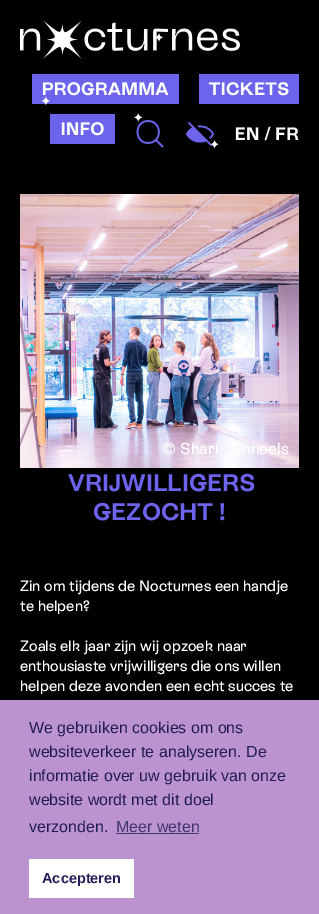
%!PS
<< /PageSize [319 914] >> setpagedevice
/picture { 5 dict begin { /h /w /y /x /name } { exch def } forall
  gsave x y translate w h scale
  w h 8 [w 0 0 h 0 0] name (r) file false 3 colorimage grestore end } def
0 914 translate 1 -1 scale
4 setmiterlimit
0 setgray
0 0 319 914 rectfill
(img1.rgb) 20 20 220 39 picture
0.424 0.392 0.929 setrgbcolor
32 74 147 30 rectfill
/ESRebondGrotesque-Bold [18 0 0 -18 0 0] selectfont
1 setgray
42 95 moveto (PROGRAMMA) show
0.424 0.392 0.929 setrgbcolor
199 74 100 30 rectfill
1 setgray
209 95 moveto (TICKETS) show
0.424 0.392 0.929 setrgbcolor
50 114 65 30 rectfill
1 setgray
60 135 moveto (INFO) show
0.424 0.392 0.929 setrgbcolor
2 setlinewidth
newpath 148 143 moveto 162.5 143 162.5 121 148 121 curveto 134 121 134 143 148 143 curveto closepath 156 140 moveto 163 147 lineto stroke
(img2.rgb) 186 122 28 24 picture
1 setgray
235 140 moveto (EN) show
/ESRebondGrotesque-Medium [18 0 0 -18 0 0] selectfont
264 140 moveto (/) show
/ESRebondGrotesque-Bold [18 0 0 -18 0 0] selectfont
275 140 moveto (FR) show
(img4.rgb) 20 194 279 274 picture
(img3.rgb) 41 33 210 302 picture
/ESRebondGrotesque-Medium [16 0 0 -16 0 0] selectfont
162 454 moveto (© Shari) show
242 454 moveto (nneels) show
/ESRebondGrotesque-Bold [24 0 0 -24 0 0] selectfont
0.424 0.392 0.929 setrgbcolor
68 491 moveto (VRIJWILLIGERS) show
93 520 moveto (GEZOCHT !) show
/ESRebondGrotesque-Medium [15 0 0 -15 0 0] selectfont
1 setgray
20 591 moveto (Zin om tijdens de Nocturnes een handje) show
20 611 moveto (te helpen?) show
20 651 moveto (Zoals elk jaar zijn wij opzoek naar) show
20 671 moveto (enthousiaste vrijwilligers die ons willen) show
20 691 moveto (helpen deze avonden een echt succes te) show
0.733 0.576 0.812 setrgbcolor
0 700 319 214 rectfill
/LiberationSans-Regular [16 0 0 -16 0 0] selectfont
0.133 0.11 0.345 setrgbcolor
29 733 moveto (We gebruiken cookies om ons) show
29 757 moveto (websiteverkeer te analyseren. De) show
29 781 moveto (informatie over uw gebruik van onze) show
29 805 moveto (website wordt met dit doel) show
29 832 moveto (verzonden.) show
0.255 0.204 0.439 setrgbcolor
116 832 moveto (Meer weten) show
116 833 83 1 rectfill
1 setgray
29 859 105 39 rectfill
/LiberationSans-Bold [14.5 0 0 -14.5 0 0] selectfont
0.133 0.11 0.345 setrgbcolor
42 883 moveto (Accepteren) show
showpage
